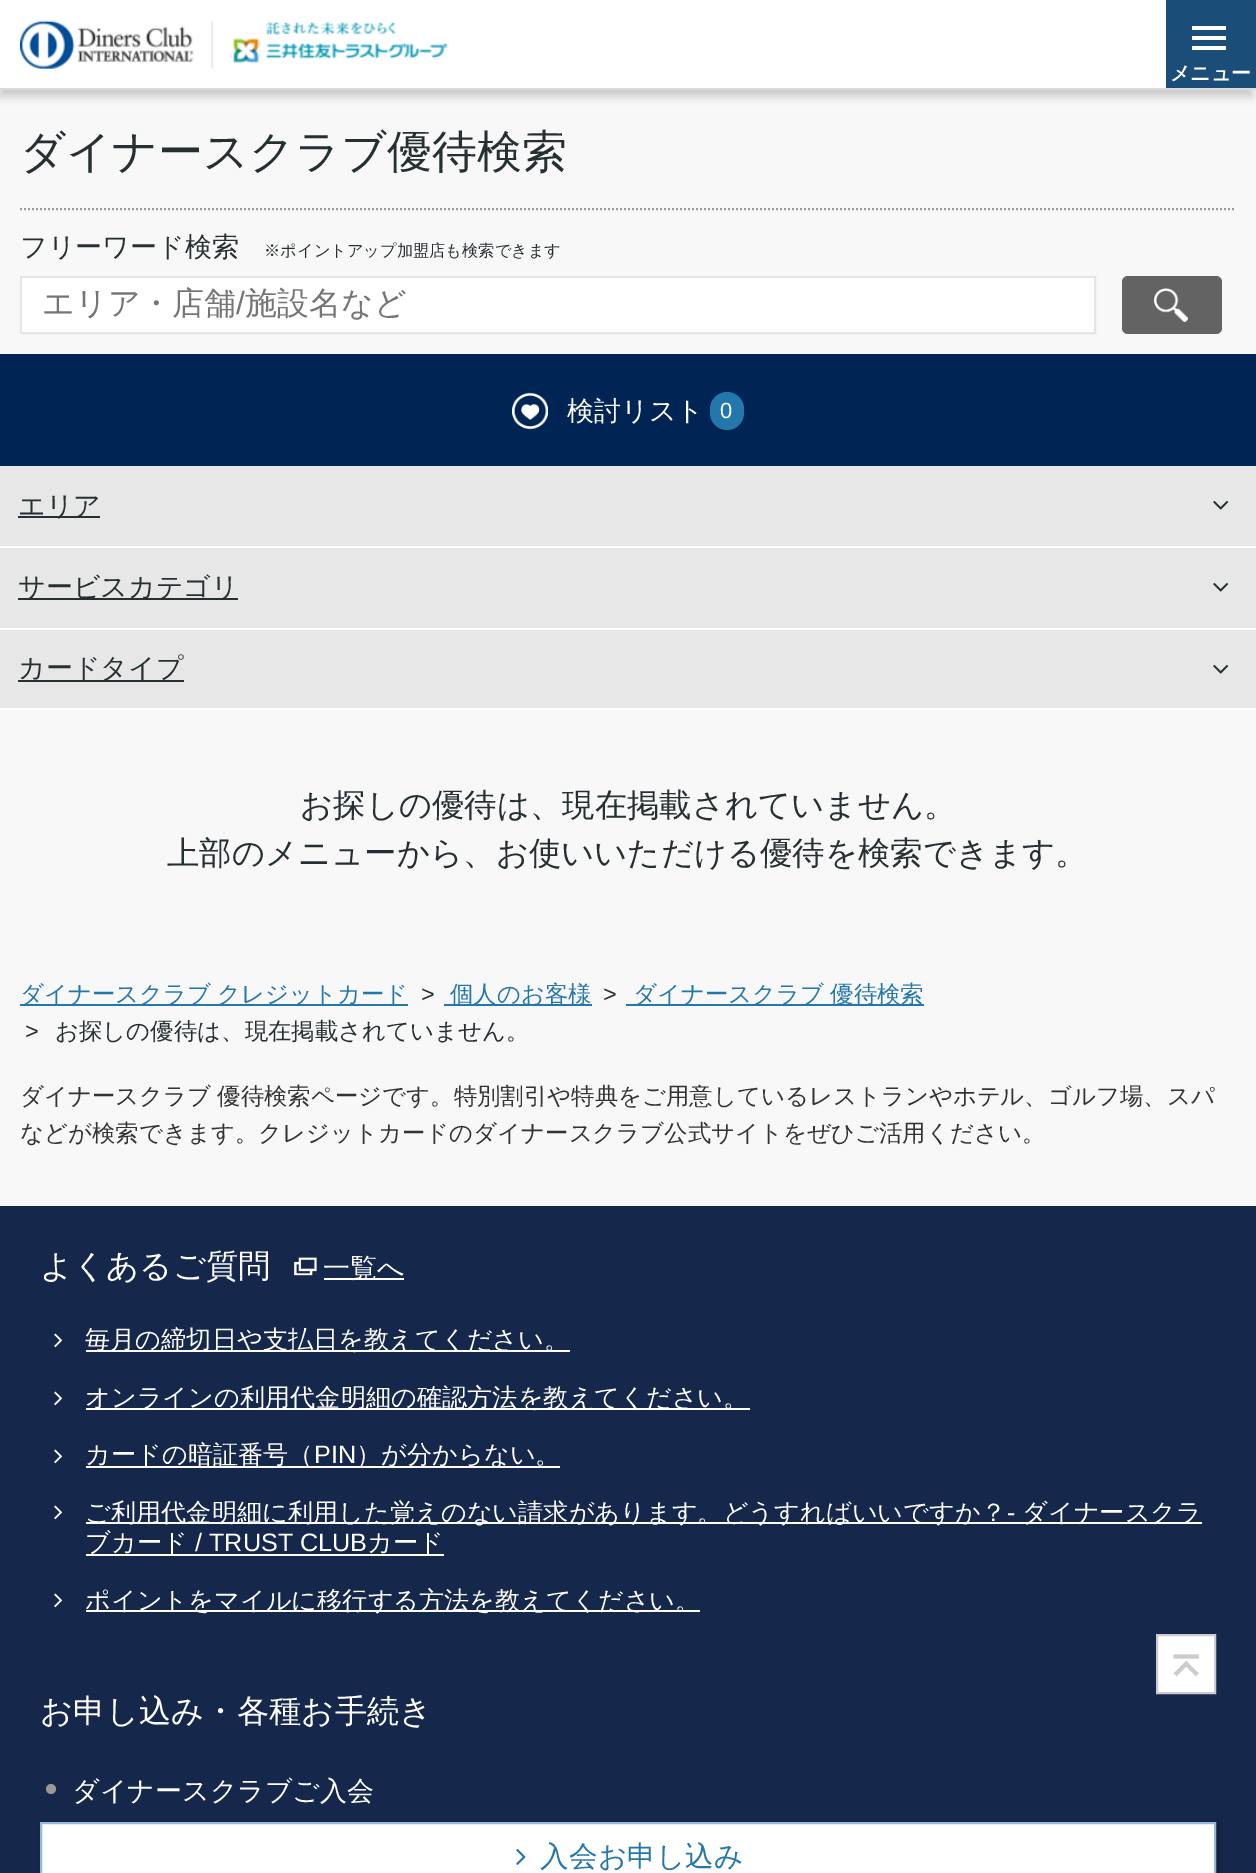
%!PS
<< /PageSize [1256 1873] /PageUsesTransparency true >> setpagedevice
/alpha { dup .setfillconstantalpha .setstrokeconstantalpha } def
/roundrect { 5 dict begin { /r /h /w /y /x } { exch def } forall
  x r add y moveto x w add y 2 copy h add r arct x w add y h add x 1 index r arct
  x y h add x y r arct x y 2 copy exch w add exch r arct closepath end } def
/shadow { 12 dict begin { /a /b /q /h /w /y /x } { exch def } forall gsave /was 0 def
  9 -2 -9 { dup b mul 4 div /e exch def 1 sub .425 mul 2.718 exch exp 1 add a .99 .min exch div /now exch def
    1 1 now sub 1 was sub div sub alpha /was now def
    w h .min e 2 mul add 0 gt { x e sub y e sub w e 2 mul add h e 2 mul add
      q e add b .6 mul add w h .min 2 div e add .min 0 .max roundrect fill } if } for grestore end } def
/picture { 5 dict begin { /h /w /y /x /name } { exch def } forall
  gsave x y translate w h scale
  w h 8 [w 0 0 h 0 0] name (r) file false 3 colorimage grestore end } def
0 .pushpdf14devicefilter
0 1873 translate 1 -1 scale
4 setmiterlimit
0.973 setgray
0 0 1256 1873 rectfill
0 setgray
0 10 1252 86 0 5 0.2 shadow
1 setgray
0 0 1166 88 rectfill
0.859 setgray
0 88 1256 2 rectfill
(img1.rgb) 20 20 428 49 picture
0.106 0.302 0.475 setrgbcolor
1166 0 90 88 rectfill
1 setgray
1192 26 34 4 rectfill
1192 46 34 4 rectfill
1192 36 34 4 rectfill
/WenQuanYiZenHei-Bold [20 0 0 -20 0 0] selectfont
1170 80 moveto (メニュー) show
/WenQuanYiZenHei-Medium [45 0 0 -45 0 0] selectfont
0.149 0.188 0.2 setrgbcolor
20 167 moveto (ダイナースクラブ優待検索) show
0.6 setgray
2 setlinewidth
[2 2] 0 setdash
newpath 20 209 moveto 1236 209 lineto stroke
/WenQuanYiZenHei-Medium [27 0 0 -27 0 0] selectfont
0.149 0.188 0.2 setrgbcolor
20 256 moveto (フリーワード検索) show
/WenQuanYiZenHei-Medium [16.25 0 0 -16.25 0 0] selectfont
264 256 moveto (※ポイントアップ加盟店も検索できます) show
0.898 setgray
[] 0 setdash
21 277 1074 56 rectstroke
1 setgray
22 278 1072 54 rectfill
/WenQuanYiZenHei-Medium [32 0 0 -32 0 0] selectfont
0.459 setgray
42 314 moveto (エリア・店舗) show
/LiberationSans-Regular [32 0 0 -32 0 0] selectfont
236 314 moveto (/) show
/WenQuanYiZenHei-Medium [32 0 0 -32 0 0] selectfont
245 314 moveto (施設名など) show
0.388 setgray
1122 276 100 58 6 roundrect fill
(img2.rgb) 1154 288 34 34 picture
0 0.145 0.329 setrgbcolor
0 354 1256 112 rectfill
(img3.rgb) 512 392 36 38 picture
/WenQuanYiZenHei-Medium [27 0 0 -27 0 0] selectfont
1 setgray
567 420 moveto (検討リスト) show
0.141 0.467 0.671 setrgbcolor
710 392 34 38 17 roundrect fill
/LiberationSans-Regular [22 0 0 -22 0 0] selectfont
1 setgray
720 418 moveto (0) show
0.906 setgray
0 466 1256 80 rectfill
1 setgray
0 546 1256 2 rectfill
0.149 0.188 0.2 setrgbcolor
18 516 82 2 rectfill
/WenQuanYiZenHei-Medium [27 0 0 -27 0 0] selectfont
18 515 moveto (エリア) show
(img4.rgb) 1213 500 16 10 picture
0.906 setgray
0 548 1256 80 rectfill
1 setgray
0 628 1256 2 rectfill
0.149 0.188 0.2 setrgbcolor
18 598 220 2 rectfill
18 596 moveto (サービスカテゴリ) show
(img4.rgb) 1213 582 16 10 picture
0.906 setgray
0 630 1256 78 rectfill
1 setgray
0 708 1256 2 rectfill
0.149 0.188 0.2 setrgbcolor
18 680 166 2 rectfill
18 677 moveto (カードタイプ) show
(img4.rgb) 1213 664 16 10 picture
/WenQuanYiZenHei-Medium [32.4 0 0 -32.4 0 0] selectfont
300 816 moveto (お探しの優待は、現在掲載されていません。) show
167 864 moveto (上部のメニューから、お使いいただける優待を検索できます。) show
0.141 0.467 0.671 setrgbcolor
20 1004 388 2 rectfill
/WenQuanYiZenHei-Medium [23.42 0 0 -23.42 0 0] selectfont
20 1002 moveto -1 0 32 (ダイナースクラブ クレジットカード) widthshow
/LiberationSans-Regular [23.42 0 0 -23.42 0 0] selectfont
0.149 0.188 0.2 setrgbcolor
421 1002 moveto (>) show
0.141 0.467 0.671 setrgbcolor
444 1004 148 2 rectfill
/WenQuanYiZenHei-Medium [23.42 0 0 -23.42 0 0] selectfont
450 1002 moveto (個人のお客様) show
/LiberationSans-Regular [23.42 0 0 -23.42 0 0] selectfont
0.149 0.188 0.2 setrgbcolor
603 1002 moveto (>) show
0.141 0.467 0.671 setrgbcolor
626 1004 298 2 rectfill
/WenQuanYiZenHei-Medium [23.42 0 0 -23.42 0 0] selectfont
633 1002 moveto -1 0 32 (ダイナースクラブ 優待検索) widthshow
/LiberationSans-Regular [23.42 0 0 -23.42 0 0] selectfont
0.149 0.188 0.2 setrgbcolor
25 1039 moveto (>) show
/WenQuanYiZenHei-Medium [23.42 0 0 -23.42 0 0] selectfont
55 1039 moveto (お探しの優待は、現在掲載されていません。) show
0.2 setgray
20 1104 moveto -1 0 32 (ダイナースクラブ 優待検索ページです。特別割引や特典をご用意しているレストランやホテル、ゴルフ場、スパ) widthshow
20 1141 moveto (などが検索できます。クレジットカードのダイナースクラブ公式サイトをぜひご活用ください。) show
0.082 0.153 0.294 setrgbcolor
0 1206 1256 667 rectfill
/WenQuanYiZenHei-Medium [32.4 0 0 -32.4 0 0] selectfont
1 setgray
40 1277 moveto (よくあるご質問) show
(img5.rgb) 294 1257 23 19 picture
324 1278 80 2 rectfill
/WenQuanYiZenHei-Medium [27 0 0 -27 0 0] selectfont
323 1277 moveto (一覧へ) show
(img6.rgb) 54 1333 8 15 picture
86 1350 484 2 rectfill
/WenQuanYiZenHei-Medium [25.2 0 0 -25.2 0 0] selectfont
85 1348 moveto (毎月の締切日や支払日を教えてください。) show
(img6.rgb) 54 1391 8 15 picture
86 1408 664 2 rectfill
85 1406 moveto (オンラインの利用代金明細の確認方法を教えてください。) show
(img6.rgb) 54 1449 8 15 picture
86 1466 474 2 rectfill
85 1463 moveto (カードの暗証番号（) show
/LiberationSans-Regular [25.2 0 0 -25.2 0 0] selectfont
314 1463 moveto (PIN) show
/WenQuanYiZenHei-Medium [25.2 0 0 -25.2 0 0] selectfont
356 1463 moveto (）が分からない。) show
(img6.rgb) 54 1505 8 15 picture
86 1522 1116 2 rectfill
85 1521 moveto (ご利用代金明細に利用した覚えのない請求があります。どうすればいいですか？) show
/LiberationSans-Regular [25.2 0 0 -25.2 0 0] selectfont
1007 1521 moveto (-) show
/WenQuanYiZenHei-Medium [25.2 0 0 -25.2 0 0] selectfont
1022 1521 moveto (ダイナースクラ) show
86 1554 358 2 rectfill
85 1551 moveto (ブカード) show
/LiberationSans-Regular [25.2 0 0 -25.2 0 0] selectfont
195 1551 moveto (/ TRUST CLUB) show
/WenQuanYiZenHei-Medium [25.2 0 0 -25.2 0 0] selectfont
367 1551 moveto (カード) show
(img6.rgb) 54 1593 8 15 picture
86 1610 614 2 rectfill
85 1609 moveto (ポイントをマイルに移行する方法を教えてください。) show
/WenQuanYiZenHei-Medium [32.4 0 0 -32.4 0 0] selectfont
40 1722 moveto (お申し込み・各種お手続き) show
0.6 setgray
newpath 51 1789 5 0 360 arc closepath fill
/WenQuanYiZenHei-Medium [27 0 0 -27 0 0] selectfont
1 setgray
72 1800 moveto (ダイナースクラブご入会) show
0 setgray
42 1824 1176 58 0 3 0.3 shadow
1 setgray
newpath 41 1823 moveto 1215 1823 lineto 1215 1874 lineto 41 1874 lineto closepath gsave fill grestore
0.573 0.733 0.835 setrgbcolor
stroke
(img7.rgb) 516 1849 10 16 picture
/WenQuanYiZenHei-Medium [28.75 0 0 -28.75 0 0] selectfont
0.141 0.467 0.671 setrgbcolor
540 1866 moveto (入会お申し込み) show
1 setgray
newpath 1157 1635 moveto 1215 1635 lineto 1215 1693 lineto 1157 1693 lineto closepath gsave fill grestore
0.8 setgray
stroke
(img8.rgb) 1173 1654 27 23 picture
.poppdf14devicefilter showpage
